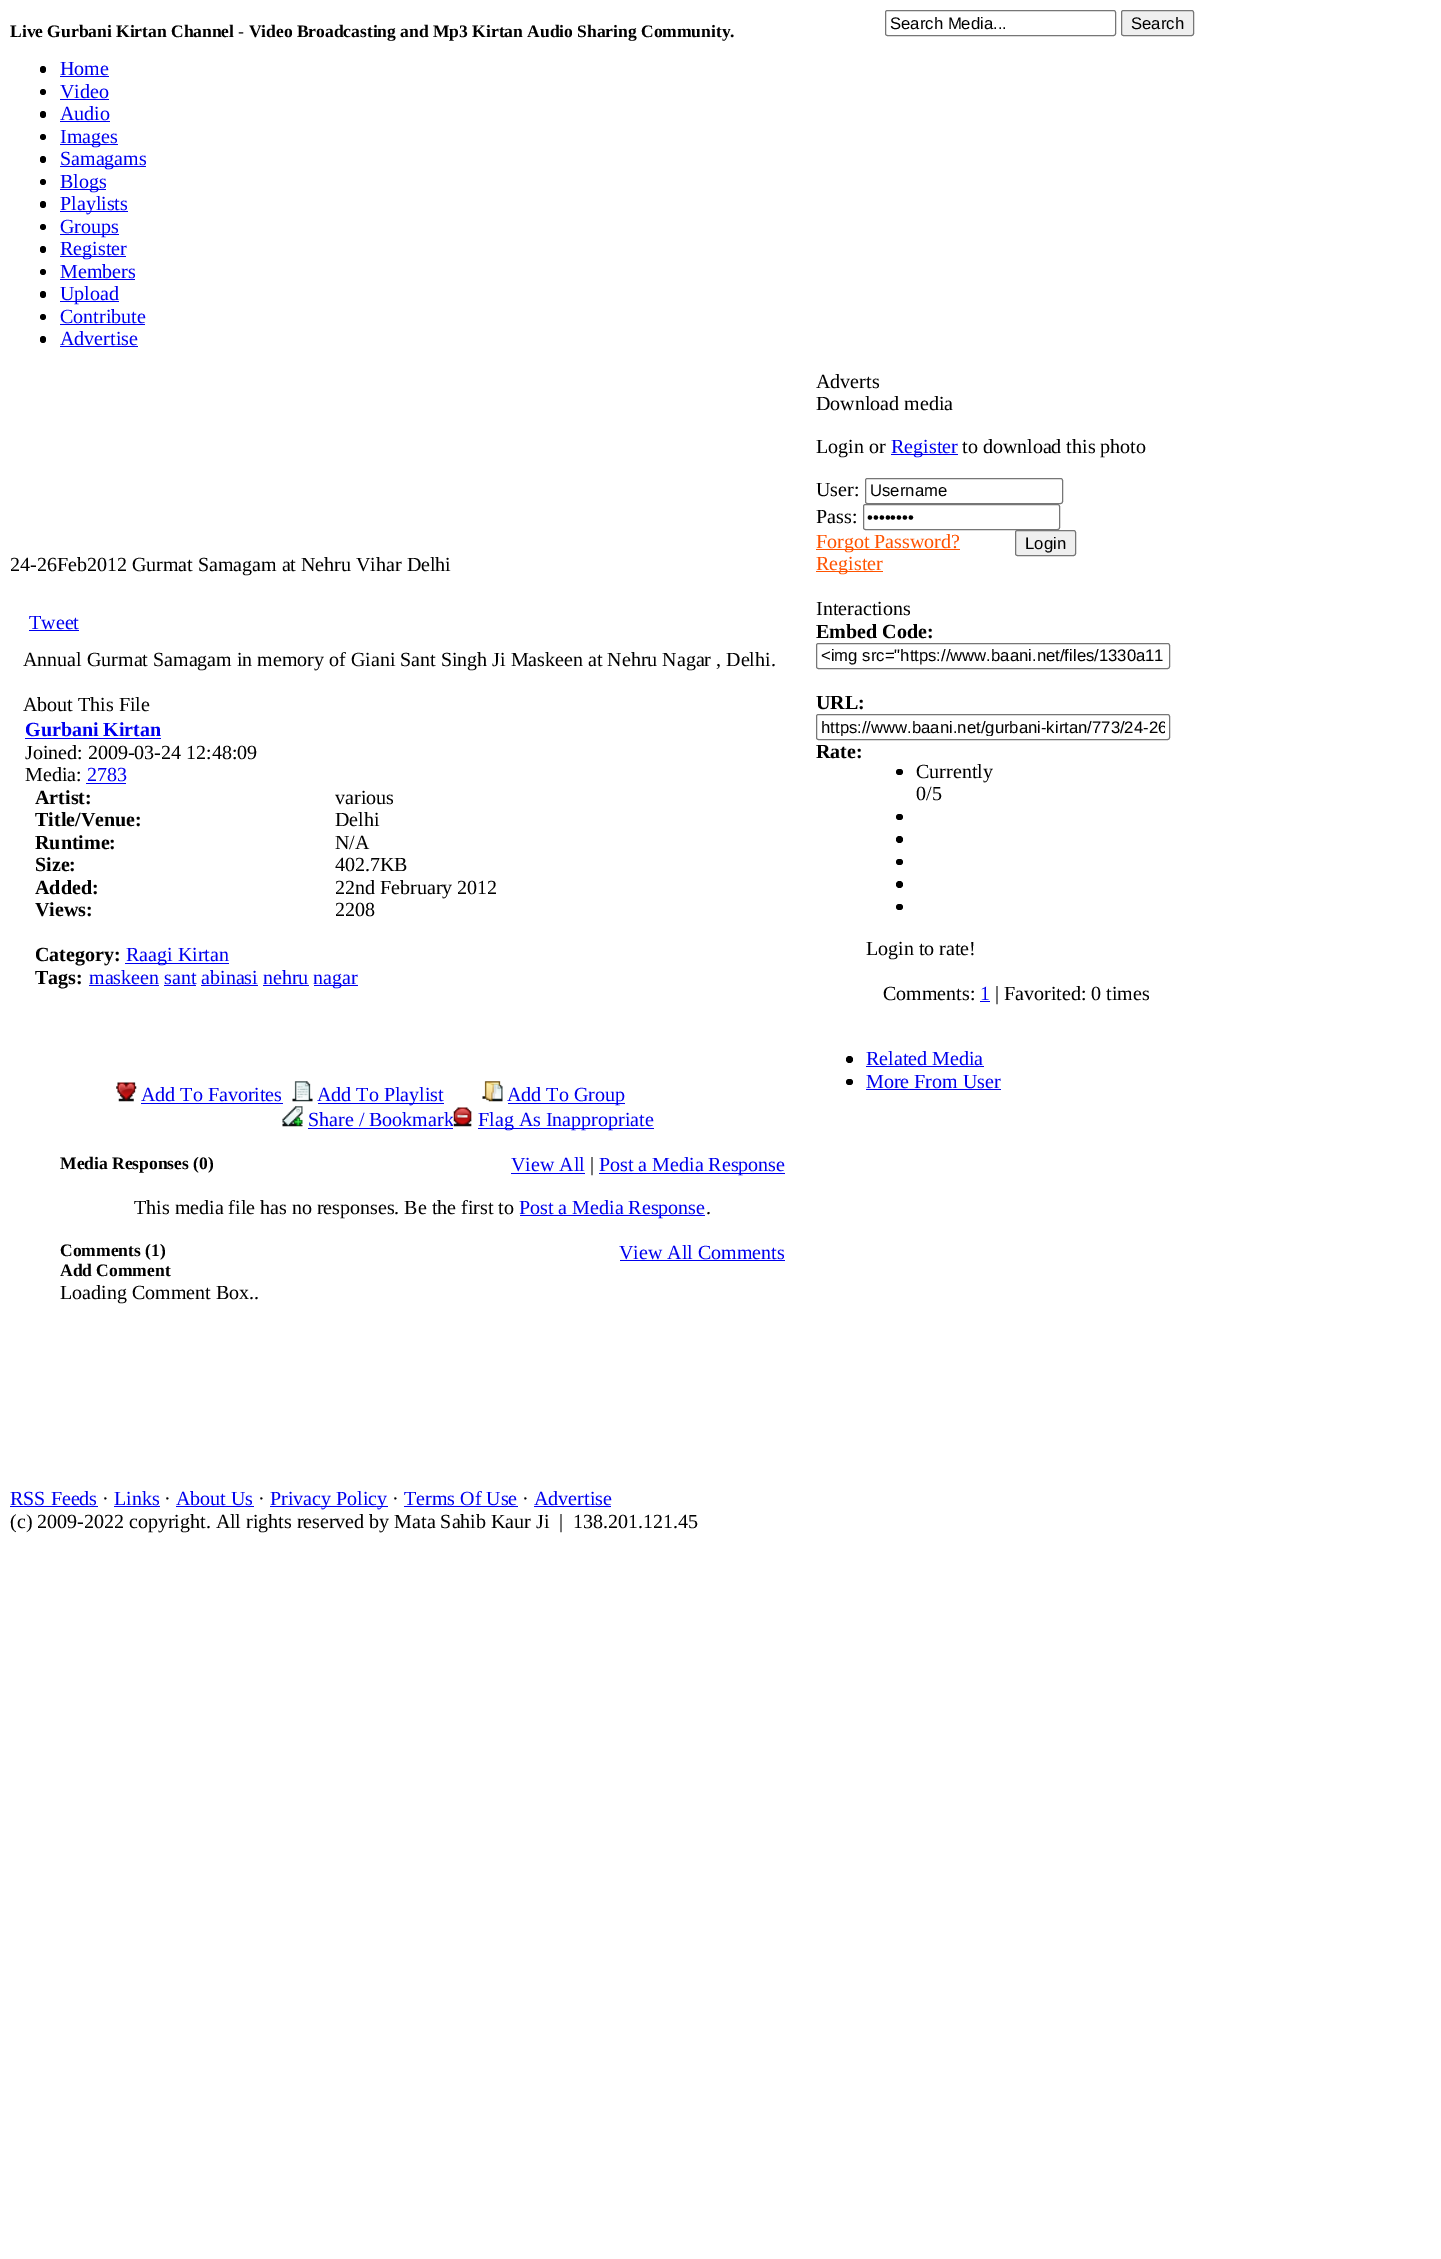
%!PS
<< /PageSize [1441 2259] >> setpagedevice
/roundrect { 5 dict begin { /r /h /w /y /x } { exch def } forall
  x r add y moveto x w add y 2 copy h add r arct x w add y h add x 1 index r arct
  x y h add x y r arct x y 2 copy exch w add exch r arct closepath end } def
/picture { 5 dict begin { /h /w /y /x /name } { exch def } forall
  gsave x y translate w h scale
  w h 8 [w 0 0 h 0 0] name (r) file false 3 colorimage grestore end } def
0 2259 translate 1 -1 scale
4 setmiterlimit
1 setgray
0 0 1441 2259 rectfill
0.463 setgray
885.5 10.5 230 25 2 roundrect stroke
/LiberationSans-Regular [16.7 0 0 -16.7 0 0] selectfont
0 setgray
890 29 moveto (Search Media...) show
0.937 setgray
1121.5 10.5 72 25 2 roundrect gsave fill grestore
0.463 setgray
stroke
0 setgray
1131 29 moveto (Search) show
40 66 6 7 3 roundrect fill
/LiberationSerif-Regular [20 0 0 -20 0 0] selectfont
0 0 0.933 setrgbcolor
60 75 moveto (Home) show
60 76 49 1 rectfill
0 setgray
newpath 43 92 3 0 360 arc closepath fill
0 0 0.933 setrgbcolor
60 98 moveto (Video) show
60 99 49 1 rectfill
0 setgray
40 111 6 7 3 roundrect fill
0 0 0.933 setrgbcolor
60 120 moveto (Audio) show
60 121 50 1 rectfill
0 setgray
newpath 43 137 3 0 360 arc closepath fill
0 0 0.933 setrgbcolor
60 144 58 1 rectfill
60 143 moveto (Images) show
0 setgray
40 156 6 7 3 roundrect fill
0 0 0.933 setrgbcolor
60 166 86 1 rectfill
60 165 moveto (Samagams) show
0 setgray
newpath 43 182 3 0 360 arc closepath fill
0 0 0.933 setrgbcolor
60 189 46 1 rectfill
60 188 moveto (Blogs) show
0 setgray
40 201 6 7 3 roundrect fill
0 0 0.933 setrgbcolor
60 211 68 1 rectfill
60 210 moveto (Playlists) show
0 setgray
newpath 43 227 3 0 360 arc closepath fill
0 0 0.933 setrgbcolor
60 234 59 1 rectfill
60 233 moveto (Groups) show
0 setgray
40 246 6 7 3 roundrect fill
0 0 0.933 setrgbcolor
60 256 66 1 rectfill
60 255 moveto (Register) show
0 setgray
newpath 43 272 3 0 360 arc closepath fill
0 0 0.933 setrgbcolor
60 278 moveto (Members) show
60 279 75 1 rectfill
0 setgray
40 291 6 7 3 roundrect fill
0 0 0.933 setrgbcolor
60 301 59 1 rectfill
60 300 moveto (Upload) show
0 setgray
newpath 43 317 3 0 360 arc closepath fill
0 0 0.933 setrgbcolor
60 323 moveto (Contribute) show
60 324 85 1 rectfill
0 setgray
40 336 6 7 3 roundrect fill
0 0 0.933 setrgbcolor
60 345 moveto (Advertise) show
60 346 78 1 rectfill
0 setgray
10 571 moveto (24-26Feb2012 Gurmat Samagam at Nehru Vihar Delhi) show
0 0 0.933 setrgbcolor
29 629 moveto (Tweet) show
29 630 50 1 rectfill
0 setgray
23 666 moveto (Annual Gurmat Samagam in memory of Giani Sant Singh Ji Maskeen at Nehru Nagar , Delhi.) show
23 711 moveto (About This File) show
/LiberationSerif-Bold [20 0 0 -20 0 0] selectfont
0 0 0.933 setrgbcolor
25 736 moveto (Gurbani Kirtan) show
25 738 136 1 rectfill
/LiberationSerif-Regular [20 0 0 -20 0 0] selectfont
0 setgray
25 759 moveto (Joined: 2009-03-24 12:48:09) show
25 781 moveto (Media:) show
0 0 0.933 setrgbcolor
87 781 moveto (2783) show
86 783 40 1 rectfill
/LiberationSerif-Bold [20 0 0 -20 0 0] selectfont
0 setgray
35 804 moveto (Artist:) show
/LiberationSerif-Regular [20 0 0 -20 0 0] selectfont
335 804 moveto (various) show
/LiberationSerif-Bold [20 0 0 -20 0 0] selectfont
35 826 moveto (Title/Venue:) show
/LiberationSerif-Regular [20 0 0 -20 0 0] selectfont
335 826 moveto (Delhi) show
/LiberationSerif-Bold [20 0 0 -20 0 0] selectfont
35 849 moveto (Runtime:) show
/LiberationSerif-Regular [20 0 0 -20 0 0] selectfont
335 849 moveto (N/A) show
/LiberationSerif-Bold [20 0 0 -20 0 0] selectfont
35 871 moveto (Size:) show
/LiberationSerif-Regular [20 0 0 -20 0 0] selectfont
335 871 moveto (402.7KB) show
/LiberationSerif-Bold [20 0 0 -20 0 0] selectfont
35 894 moveto (Added:) show
/LiberationSerif-Regular [20 0 0 -20 0 0] selectfont
335 894 moveto (22nd February 2012) show
/LiberationSerif-Bold [20 0 0 -20 0 0] selectfont
35 916 moveto (Views:) show
/LiberationSerif-Regular [20 0 0 -20 0 0] selectfont
335 916 moveto (2208) show
/LiberationSerif-Bold [20 0 0 -20 0 0] selectfont
35 961 moveto (Category:) show
0 0 0.933 setrgbcolor
125 963 104 1 rectfill
/LiberationSerif-Regular [20 0 0 -20 0 0] selectfont
126 961 moveto (Raagi Kirtan) show
/LiberationSerif-Bold [20 0 0 -20 0 0] selectfont
0 setgray
35 984 moveto (Tags:) show
/LiberationSerif-Regular [20 0 0 -20 0 0] selectfont
0 0 0.933 setrgbcolor
89 984 moveto (maskeen sant abinasi nehru) show
89 985 70 1 rectfill
314 985 44 1 rectfill
313 984 moveto (nagar) show
164 985 32 1 rectfill
201 985 57 1 rectfill
263 985 46 1 rectfill
(img1.rgb) 116 1082 21 20 picture
141 1101 moveto (Add To Favorites) show
141 1103 142 1 rectfill
(img2.rgb) 292 1081 21 21 picture
318 1103 126 1 rectfill
317 1101 moveto (Add To Playlist) show
(img3.rgb) 482 1081 21 21 picture
508 1103 117 1 rectfill
507 1101 moveto (Add To Group) show
(img4.rgb) 282 1106 21 21 picture
308 1126 moveto (Share / Bookmark) show
308 1128 145 1 rectfill
(img5.rgb) 453 1107 19 20 picture
478 1128 176 1 rectfill
478 1126 moveto (Flag As Inappropriate) show
/LiberationSerif-Bold [17.5 0 0 -17.5 0 0] selectfont
0 setgray
60 1169 moveto (Media Responses \(0\)) show
/LiberationSerif-Regular [20 0 0 -20 0 0] selectfont
0 0 0.933 setrgbcolor
511 1171 moveto (View All) show
511 1173 74 1 rectfill
0 setgray
590 1171 moveto (|) show
0 0 0.933 setrgbcolor
599 1173 186 1 rectfill
599 1171 moveto (Post a Media Response) show
0 setgray
134 1214 moveto (This media file has no responses. Be the first to) show
0 0 0.933 setrgbcolor
520 1215 185 1 rectfill
519 1214 moveto (Post a Media Response) show
0 setgray
706 1214 moveto (.) show
/LiberationSerif-Bold [17.5 0 0 -17.5 0 0] selectfont
60 1256 moveto (Comments \(1\)) show
/LiberationSerif-Regular [20 0 0 -20 0 0] selectfont
0 0 0.933 setrgbcolor
619 1259 moveto (View All Comments) show
620 1260 165 1 rectfill
/LiberationSerif-Bold [17.5 0 0 -17.5 0 0] selectfont
0 setgray
60 1276 moveto (Add Comment) show
/LiberationSerif-Regular [20 0 0 -20 0 0] selectfont
60 1299 moveto (Loading Comment Box..) show
816 388 moveto (Adverts) show
816 410 moveto (Download media) show
816 453 moveto (Login or) show
0 0 0.933 setrgbcolor
891 454 67 1 rectfill
891 453 moveto (Register) show
0 setgray
962 453 moveto (to download this photo) show
816 496 moveto (User:) show
0.463 setgray
865.5 478.5 197 25 2 roundrect stroke
/LiberationSans-Regular [16.7 0 0 -16.7 0 0] selectfont
0 setgray
870 496 moveto (Username) show
/LiberationSerif-Regular [20 0 0 -20 0 0] selectfont
816 523 moveto (Pass:) show
0.463 setgray
863.5 504.5 196 25 2 roundrect stroke
/LiberationSans-Regular [16.7 0 0 -16.7 0 0] selectfont
0 setgray
867 523 moveto (••••••••) show
1 0.325 0 setrgbcolor
816 549 144 1 rectfill
/LiberationSerif-Regular [20 0 0 -20 0 0] selectfont
816 548 moveto (Forgot Password?) show
0.937 setgray
1015.5 530.5 60 25 2 roundrect gsave fill grestore
0.463 setgray
stroke
/LiberationSans-Regular [16.7 0 0 -16.7 0 0] selectfont
0 setgray
1025 549 moveto (Login) show
1 0.325 0 setrgbcolor
816 571 67 1 rectfill
/LiberationSerif-Regular [20 0 0 -20 0 0] selectfont
816 570 moveto (Register) show
0 setgray
816 615 moveto (Interactions) show
/LiberationSerif-Bold [20 0 0 -20 0 0] selectfont
816 638 moveto (Embed Code:) show
0.463 setgray
816.5 643.5 353 25 2 roundrect stroke
/LiberationSans-Regular [16.7 0 0 -16.7 0 0] selectfont
0 setgray
821 661 moveto (<img src="https://www.baani.net/files/1330a11) show
/LiberationSerif-Bold [20 0 0 -20 0 0] selectfont
816 709 moveto (URL:) show
0.463 setgray
816.5 714.5 353 25 2 roundrect stroke
gsave
821 718 344 18 rectclip
/LiberationSans-Regular [16.7 0 0 -16.7 0 0] selectfont
0 setgray
821 733 moveto (https://www.baani.net/gurbani-kirtan/773/24-26) show
grestore
0 setgray
816 758 moveto (Rate:) show
896 769 7 6 3 roundrect fill
/LiberationSerif-Regular [20 0 0 -20 0 0] selectfont
916 778 moveto (Currently) show
916 800 moveto (0/5) show
896 814 7 6 3 roundrect fill
newpath 899.5 839.5 3.5 0 360 arc closepath fill
896 859 7 6 3 roundrect fill
newpath 899.5 884.5 3.5 0 360 arc closepath fill
896 904 7 6 3 roundrect fill
866 955 moveto (Login to rate!) show
883 1000 moveto (Comments:) show
0 0 0.933 setrgbcolor
980 1000 moveto (1) show
980 1001 10 1 rectfill
0 setgray
995 1000 moveto (| Favorited: 0 times) show
newpath 849.5 1059.5 3.5 0 360 arc closepath fill
0 0 0.933 setrgbcolor
866 1065 moveto (Related Media) show
866 1066 118 1 rectfill
0 setgray
846 1079 7 6 3 roundrect fill
0 0 0.933 setrgbcolor
866 1088 moveto (More From User) show
866 1089 135 1 rectfill
/LiberationSerif-Bold [17.5 0 0 -17.5 0 0] selectfont
0 setgray
10 37 moveto (Live Gurbani Kirtan Channel - Video Broadcasting and Mp3 Kirtan Audio Sharing Community.) show
/LiberationSerif-Regular [20 0 0 -20 0 0] selectfont
0 0 0.933 setrgbcolor
10 1505 moveto (RSS Feeds) show
10 1506 88 1 rectfill
0 setgray
102 1505 moveto (·) show
0 0 0.933 setrgbcolor
114 1505 moveto (Links) show
114 1506 46 1 rectfill
0 setgray
164 1505 moveto (·) show
0 0 0.933 setrgbcolor
176 1505 moveto (About Us) show
176 1506 78 1 rectfill
0 setgray
258 1505 moveto (·) show
0 0 0.933 setrgbcolor
270 1506 118 1 rectfill
270 1505 moveto (Privacy Policy) show
0 setgray
392 1505 moveto (·) show
0 0 0.933 setrgbcolor
404 1505 moveto (Terms Of Use) show
404 1506 114 1 rectfill
0 setgray
522 1505 moveto (·) show
0 0 0.933 setrgbcolor
534 1505 moveto (Advertise) show
534 1506 77 1 rectfill
0 setgray
10 1528 moveto (\(c\) 2009-2022 copyright. All rights reserved by Mata Sahib Kaur Ji  |  138.201.121.45) show
showpage
